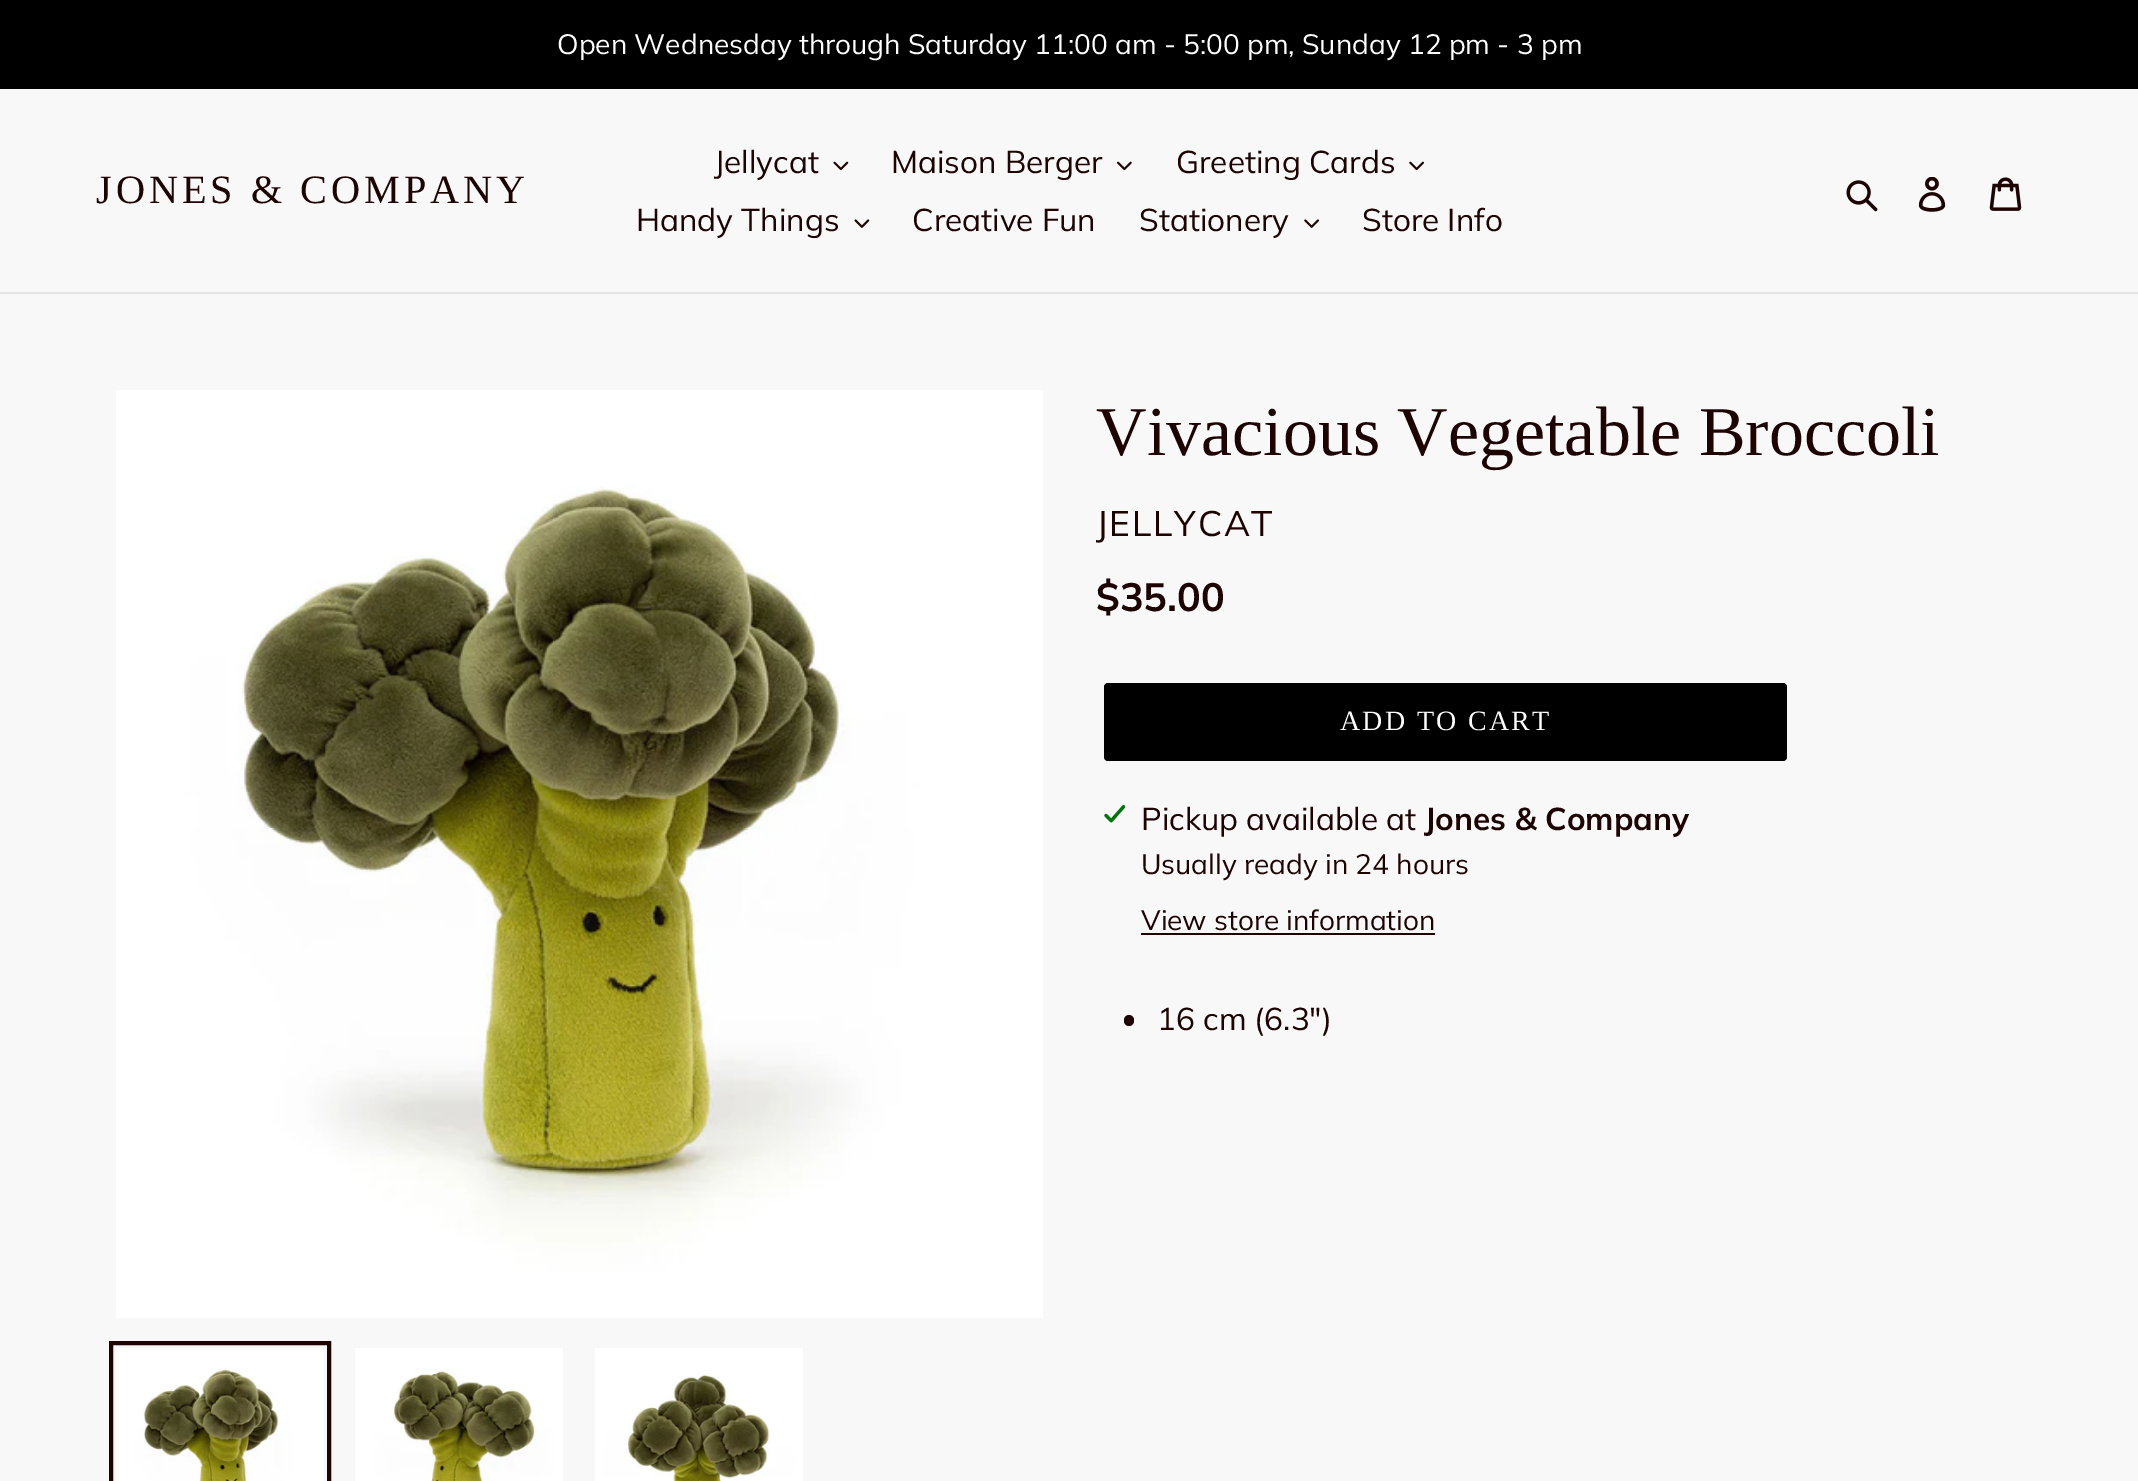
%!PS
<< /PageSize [2138 1481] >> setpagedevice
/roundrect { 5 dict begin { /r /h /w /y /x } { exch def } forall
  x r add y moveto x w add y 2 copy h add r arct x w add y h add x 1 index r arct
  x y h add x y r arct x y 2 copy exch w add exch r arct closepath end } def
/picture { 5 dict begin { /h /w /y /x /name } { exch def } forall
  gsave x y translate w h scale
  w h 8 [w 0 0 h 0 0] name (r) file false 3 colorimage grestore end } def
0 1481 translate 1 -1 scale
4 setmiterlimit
0.973 setgray
0 0 2138 1481 rectfill
0 setgray
0 0 2138 89 rectfill
/Muli-Regular [28 0 0 -28 0 0] selectfont
1 setgray
557 54 moveto (Open Wednesday through Saturday 11:00 am - 5:00 pm, Sunday 12 pm - 3 pm) show
0.894 setgray
0 292 2138 2 rectfill
/LiberationSerif-Regular [40.25 0 0 -40.25 0 0] selectfont
0.118 0.012 0.012 setrgbcolor
96 203 moveto 4 0 (JONES & COMPANY) ashow
/Muli-Regular [31.5 0 0 -31.5 0 0] selectfont
714 173 moveto (Jellycat) show
(img1.rgb) 833 161 16 10 picture
891 173 moveto (Maison Berger) show
(img2.rgb) 1117 161 15 10 picture
1176 173 moveto (Greeting Cards) show
(img3.rgb) 1409 161 15 10 picture
636 231 moveto (Handy Things) show
(img4.rgb) 854 219 16 9 picture
912 231 moveto (Creative Fun) show
1139 231 moveto (Stationery) show
(img5.rgb) 1304 219 15 9 picture
1362 231 moveto (Store Info) show
(img6.rgb) 1846 180 32 32 picture
(img7.rgb) 1918 177 28 35 picture
(img8.rgb) 1989 177 33 34 picture
(img9.rgb) 116 390 927 928 picture
4 setlinewidth
111 1343 218 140 rectstroke
(img10.rgb) 116 1348 208 133 picture
(img11.rgb) 355 1348 208 133 picture
(img12.rgb) 595 1348 208 133 picture
/LiberationSerif-Regular [70 0 0 -70 0 0] selectfont
1096 455 moveto (Vivacious Vegetable Broccoli) show
/Muli-Regular [35.5 0 0 -35.5 0 0] selectfont
1096 536 moveto 1.75 0 (JELLYCAT) ashow
/Muli-Bold [39.5 0 0 -39.5 0 0] selectfont
1096 611 moveto ($35.00) show
0 setgray
1104 683 683 78 4 roundrect fill
/LiberationSerif-Regular [28 0 0 -28 0 0] selectfont
1 setgray
1340 730 moveto 2.25 0 (ADD TO CART) ashow
(img13.rgb) 1104 805 21 18 picture
/Muli-Regular [31.5 0 0 -31.5 0 0] selectfont
0.118 0.012 0.012 setrgbcolor
1141 830 moveto (Pickup available at) show
/Muli-Bold [31.5 0 0 -31.5 0 0] selectfont
1424 830 moveto (Jones & Company) show
/Muli-Regular [28 0 0 -28 0 0] selectfont
1141 874 moveto (Usually ready in 24 hours) show
1141 930 moveto (View store information) show
1141 933 294 2 rectfill
1124 1015 10 11 5 roundrect fill
/Muli-Regular [31.5 0 0 -31.5 0 0] selectfont
1157 1030 moveto (16 cm \(6.3"\)) show
showpage
